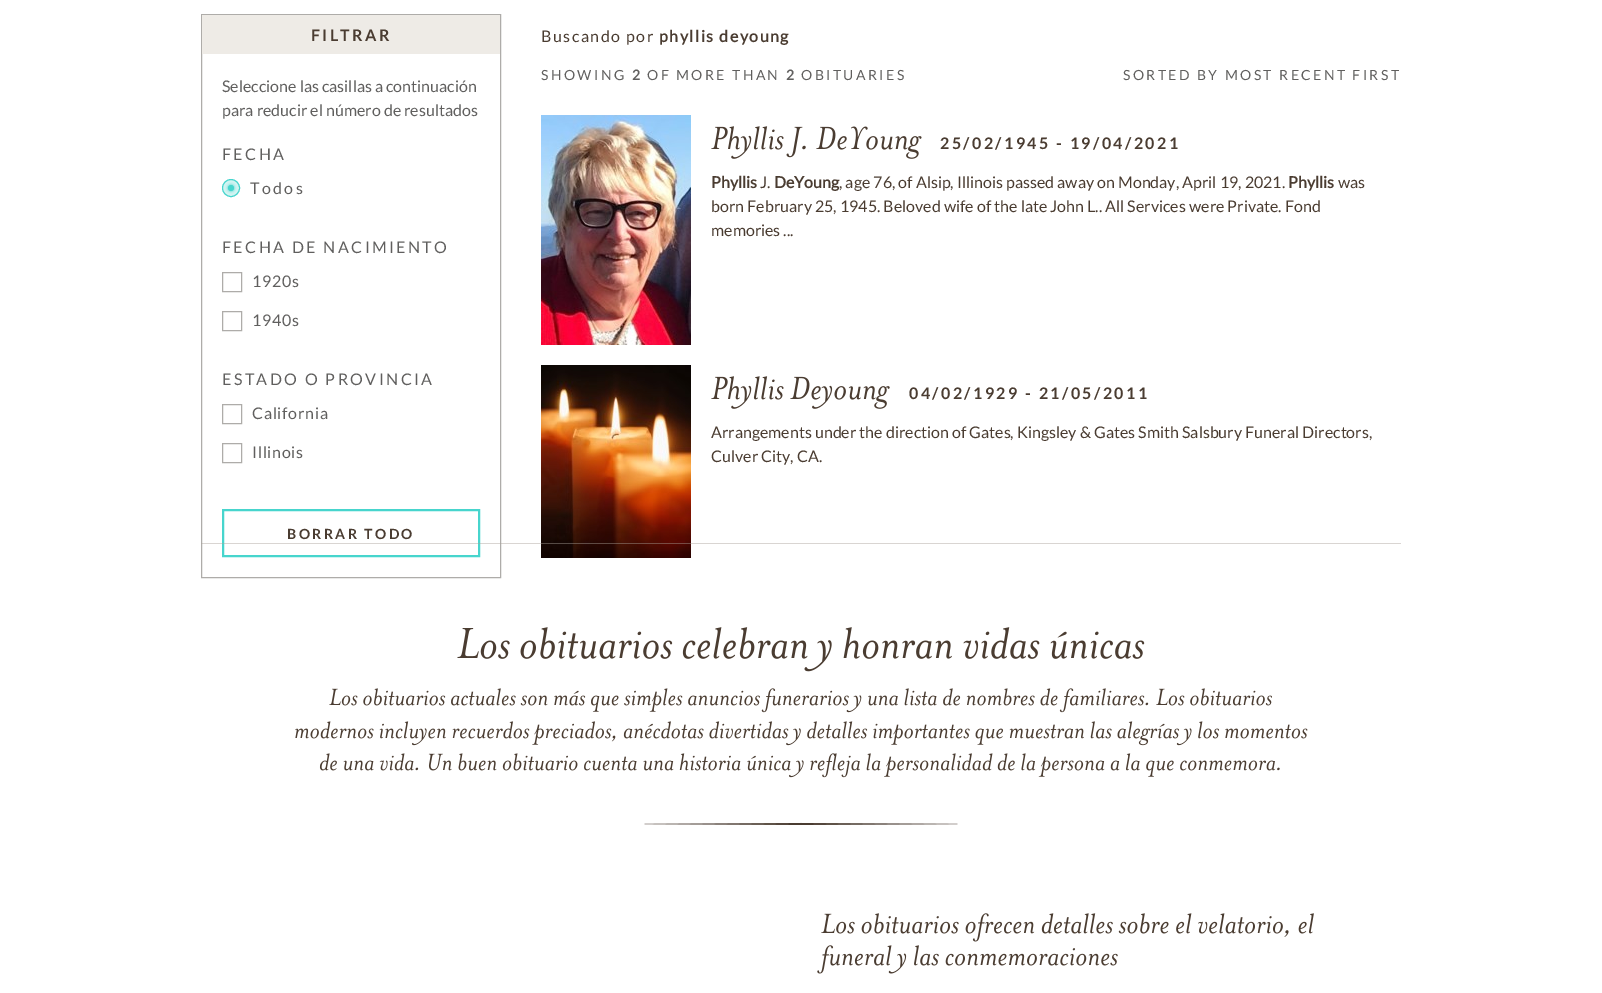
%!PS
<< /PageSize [1602 993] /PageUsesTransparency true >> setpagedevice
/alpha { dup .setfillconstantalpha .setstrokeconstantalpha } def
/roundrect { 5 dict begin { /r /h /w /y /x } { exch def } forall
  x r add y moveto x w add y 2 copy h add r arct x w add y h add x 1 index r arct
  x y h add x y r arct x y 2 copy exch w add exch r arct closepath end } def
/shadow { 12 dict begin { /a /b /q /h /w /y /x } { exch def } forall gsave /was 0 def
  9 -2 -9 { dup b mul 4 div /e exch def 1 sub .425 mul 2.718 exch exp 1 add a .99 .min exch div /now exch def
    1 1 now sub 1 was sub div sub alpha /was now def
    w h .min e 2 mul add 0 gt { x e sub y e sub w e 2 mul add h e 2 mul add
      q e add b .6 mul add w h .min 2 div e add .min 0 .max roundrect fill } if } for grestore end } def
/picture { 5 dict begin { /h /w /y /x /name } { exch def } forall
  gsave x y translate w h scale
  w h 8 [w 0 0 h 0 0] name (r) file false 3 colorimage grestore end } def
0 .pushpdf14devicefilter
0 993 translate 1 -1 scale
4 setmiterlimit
1 setgray
0 0 1602 993 rectfill
0.682 0.675 0.663 setrgbcolor
201.5 14.5 299 563 rectstroke
0.933 0.922 0.902 setrgbcolor
202 15 298 39 rectfill
/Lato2-Bold [16 0 0 -16 0 0] selectfont
0.29 0.235 0.192 setrgbcolor
311 41 moveto 2.4 0 (FILTRAR) ashow
/Lato-Regular [16 0 0 -16 0 0] selectfont
0.376 0.373 0.369 setrgbcolor
222 92 moveto (Seleccione las casillas a continuación) show
222 116 moveto (para reducir el número de resultados) show
222 160 moveto 2.4 0 (FECHA) ashow
0.827 0.957 0.949 setrgbcolor
newpath 231 188 8.5 0 360 arc closepath gsave fill grestore
0.278 0.835 0.804 setrgbcolor
stroke
228 185 6 6 3 1.5 1 shadow
newpath 231 188 3 0 360 arc closepath fill
0.376 0.373 0.369 setrgbcolor
250 194 moveto 2.4 0 (Todos) ashow
222 253 moveto 2.4 0 (FECHA DE NACIMIENTO) ashow
0.682 0.675 0.663 setrgbcolor
222.5 272.5 19 19 rectstroke
0.376 0.373 0.369 setrgbcolor
252 287 moveto 0.75 0 (1920s) ashow
0.682 0.675 0.663 setrgbcolor
222.5 311.5 19 19 rectstroke
0.376 0.373 0.369 setrgbcolor
252 326 moveto 0.75 0 (1940s) ashow
222 385 moveto 2.4 0 (ESTADO O PROVINCIA) ashow
0.682 0.675 0.663 setrgbcolor
222.5 404.5 19 19 rectstroke
0.376 0.373 0.369 setrgbcolor
252 419 moveto 0.75 0 (California) ashow
0.682 0.675 0.663 setrgbcolor
222.5 443.5 19 19 rectstroke
0.376 0.373 0.369 setrgbcolor
252 458 moveto 0.75 0 (Illinois) ashow
0.278 0.835 0.804 setrgbcolor
2 setlinewidth
223 510 256 46 rectstroke
/Lato2-Bold [14 0 0 -14 0 0] selectfont
0.29 0.235 0.192 setrgbcolor
287 539 moveto 2.4 0 (BORRAR TODO) ashow
/Lato-Regular [16 0 0 -16 0 0] selectfont
541 42 moveto 1.5 0 (Buscando por) ashow
/Lato-Bold [16 0 0 -16 0 0] selectfont
659 42 moveto 1.5 0 (phyllis deyoung) ashow
/Lato-Regular [14 0 0 -14 0 0] selectfont
0.376 0.373 0.369 setrgbcolor
541 80 moveto 2.4 0 (SHOWING) ashow
/Lato-Bold [14 0 0 -14 0 0] selectfont
632 80 moveto 2.4 0 (2) ashow
/Lato-Regular [14 0 0 -14 0 0] selectfont
647 80 moveto 2.4 0 (OF MORE THAN) ashow
/Lato-Bold [14 0 0 -14 0 0] selectfont
786 80 moveto 2.4 0 (2) ashow
/Lato-Regular [14 0 0 -14 0 0] selectfont
801 80 moveto 2.4 0 (OBITUARIES) ashow
1123 80 moveto 2.4 0 (SORTED BY MOST RECENT FIRST) ashow
(img1.rgb) 541 115 150 230 picture
(img2.rgb) 711 126 73 33 picture
(img3.rgb) 786 126 20 32 picture
(img4.rgb) 816 126 106 33 picture
/Lato2-Bold [16 0 0 -16 0 0] selectfont
0.29 0.235 0.192 setrgbcolor
940 149 moveto 2.4 0 (25/02/1945 - 19/04/2021) ashow
/Lato-Bold [16 0 0 -16 0 0] selectfont
711 188 moveto (Phyllis) show
/Lato-Regular [16 0 0 -16 0 0] selectfont
760 188 moveto (J.) show
/Lato-Bold [16 0 0 -16 0 0] selectfont
774 188 moveto (DeYoung) show
/Lato-Regular [16 0 0 -16 0 0] selectfont
839 188 moveto (, age 76, of Alsip, Illinois passed away on Monday, April 19, 2021.) show
/Lato-Bold [16 0 0 -16 0 0] selectfont
1288 188 moveto (Phyllis) show
/Lato-Regular [16 0 0 -16 0 0] selectfont
1338 188 moveto (was) show
711 212 moveto (born February 25, 1945. Beloved wife of the late John L.. All Services were Private. Fond) show
711 236 moveto (memories ...) show
(img5.rgb) 541 365 150 193 picture
(img2.rgb) 711 376 73 33 picture
(img6.rgb) 790 376 100 33 picture
/Lato2-Bold [16 0 0 -16 0 0] selectfont
909 399 moveto 2.4 0 (04/02/1929 - 21/05/2011) ashow
/Lato-Regular [16 0 0 -16 0 0] selectfont
711 438 moveto (Arrangements under the direction of Gates, Kingsley & Gates Smith Salsbury Funeral Directors,) show
711 462 moveto (Culver City, CA.) show
0.25 alpha
201 543 1200 1 rectfill
0.933 0.922 0.902 setrgbcolor
201 543 1200 1 rectfill
1 alpha
(img7.rgb) 457 627 688 45 picture
(img8.rgb) 329 688 943 25 picture
(img9.rgb) 295 721 1013 25 picture
(img10.rgb) 319 753 961 25 picture
(img11.rgb) 644 822 314 3 picture
(img12.rgb) 821 913 493 29 picture
(img13.rgb) 817 945 301 29 picture
.poppdf14devicefilter showpage
